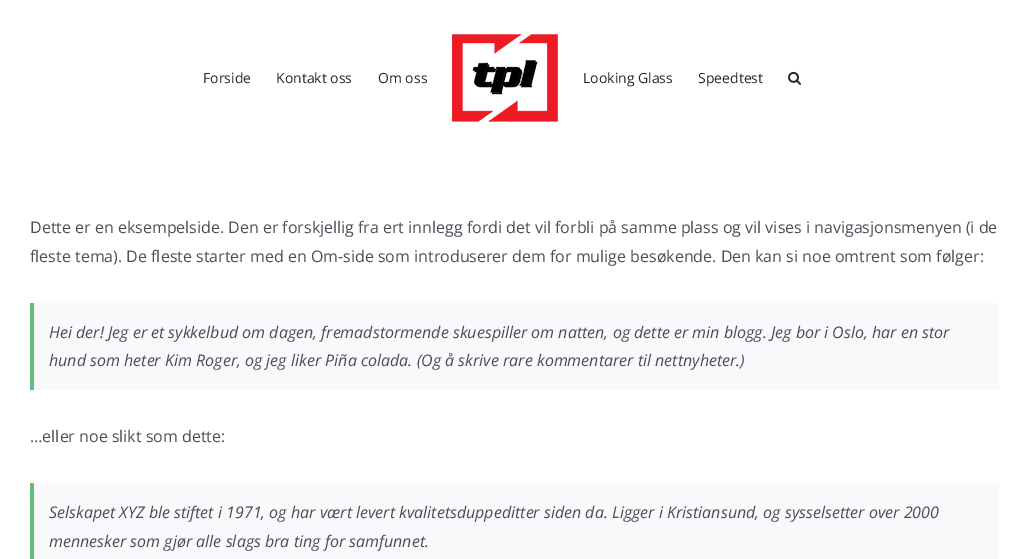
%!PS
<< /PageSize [1029 559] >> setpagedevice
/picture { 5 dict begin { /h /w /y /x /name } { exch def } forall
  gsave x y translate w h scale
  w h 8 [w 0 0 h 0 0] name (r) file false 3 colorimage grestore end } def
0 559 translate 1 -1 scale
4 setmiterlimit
1 setgray
0 0 1029 559 rectfill
/OpenSans-Regular [14 0 0 -14 0 0] selectfont
0.129 0.161 0.204 setrgbcolor
203 83 moveto (Forside) show
276 83 moveto (Kontakt oss) show
378 83 moveto (Om oss) show
(img1.rgb) 452 34 106 88 picture
583 83 moveto (Looking Glass) show
698 83 moveto (Speedtest) show
(img2.rgb) 788 71 13 14 picture
/OpenSans-Regular [16 0 0 -16 0 0] selectfont
0.29 0.306 0.341 setrgbcolor
30 233 moveto (Dette er en eksempelside. Den er forskjellig fra ert innlegg fordi det vil forbli på samme plass og vil vises i navigasjonsmenyen \(i de) show
30 262 moveto (fleste tema\). De fleste starter med en Om-side som introduserer dem for mulige besøkende. Den kan si noe omtrent som følger:) show
0.976 0.976 0.984 setrgbcolor
34 303 965 87 rectfill
0.396 0.737 0.482 setrgbcolor
30 303 4 87 rectfill
/OpenSans-Italic [16 0 0 -16 0 0] selectfont
0.29 0.306 0.341 setrgbcolor
49 338 moveto (Hei der! Jeg er et sykkelbud om dagen, fremadstormende skuespiller om natten, og dette er min blogg. Jeg bor i Oslo, har en stor) show
49 366 moveto (hund som heter Kim Roger, og jeg liker Piña colada. \(Og å skrive rare kommentarer til nettnyheter.\)) show
/OpenSans-Regular [16 0 0 -16 0 0] selectfont
30 442 moveto (…eller noe slikt som dette:) show
0.976 0.976 0.984 setrgbcolor
34 483 965 76 rectfill
0.396 0.737 0.482 setrgbcolor
30 483 4 76 rectfill
/OpenSans-Italic [16 0 0 -16 0 0] selectfont
0.29 0.306 0.341 setrgbcolor
49 518 moveto (Selskapet XYZ ble stiftet i 1971, og har vært levert kvalitetsduppeditter siden da. Ligger i Kristiansund, og sysselsetter over 2000) show
49 547 moveto (mennesker som gjør alle slags bra ting for samfunnet.) show
showpage
